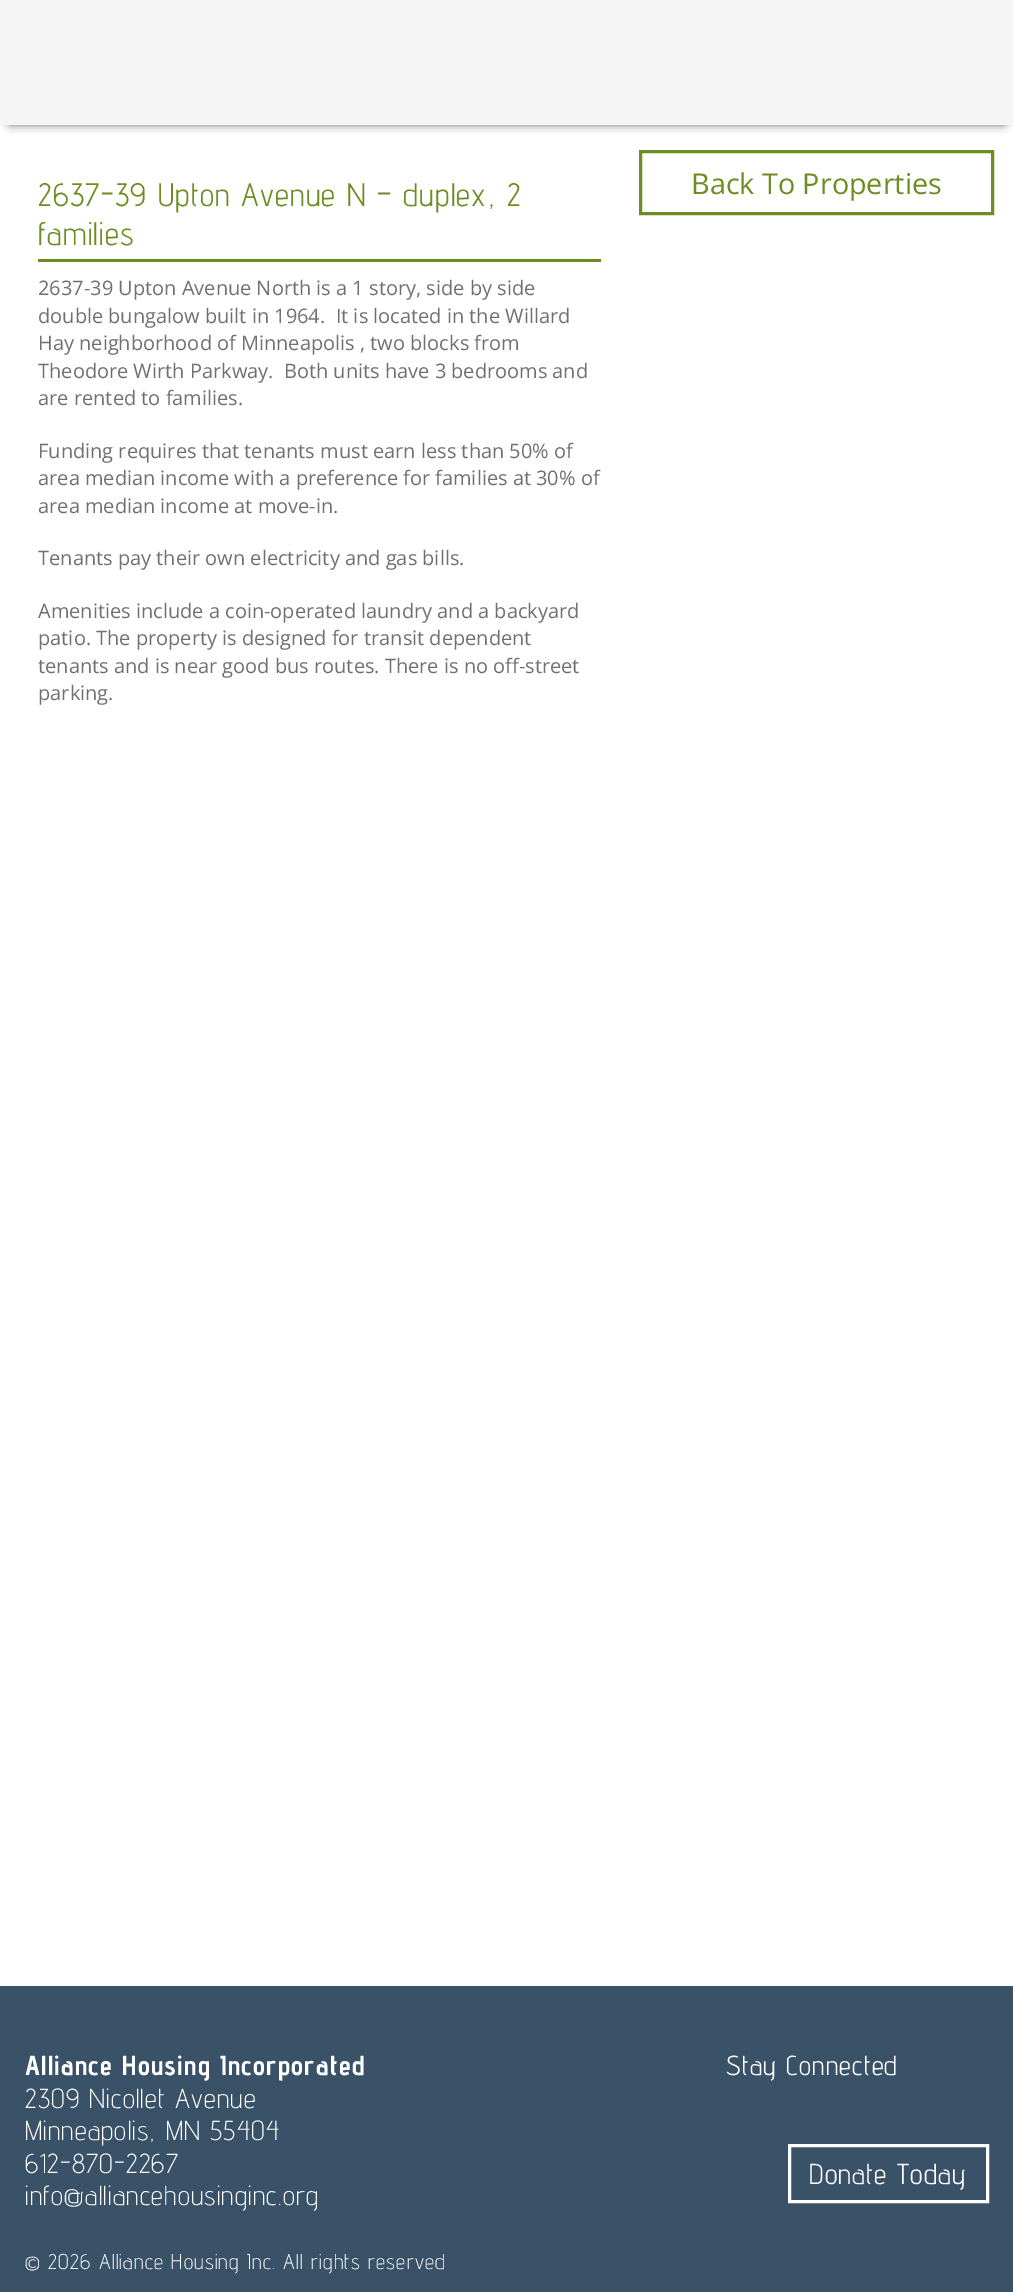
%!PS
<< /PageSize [1013 2292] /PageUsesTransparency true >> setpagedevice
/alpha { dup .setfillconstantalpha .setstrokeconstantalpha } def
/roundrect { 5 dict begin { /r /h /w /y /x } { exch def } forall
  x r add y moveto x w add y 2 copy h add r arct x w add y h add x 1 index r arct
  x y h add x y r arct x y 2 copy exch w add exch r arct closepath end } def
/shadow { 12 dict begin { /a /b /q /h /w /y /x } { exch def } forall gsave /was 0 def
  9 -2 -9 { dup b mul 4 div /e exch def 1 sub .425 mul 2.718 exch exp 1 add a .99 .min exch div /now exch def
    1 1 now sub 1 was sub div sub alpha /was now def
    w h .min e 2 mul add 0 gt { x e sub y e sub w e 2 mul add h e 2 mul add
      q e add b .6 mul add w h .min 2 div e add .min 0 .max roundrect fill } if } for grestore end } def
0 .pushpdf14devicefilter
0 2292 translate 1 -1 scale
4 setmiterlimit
1 setgray
0 0 1013 2292 rectfill
0.133 setgray
10 18 994 105 0 5 1 shadow
0.961 setgray
0 0 1013 125 rectfill
0.427 0.553 0.137 setrgbcolor
38 259 563 3 rectfill
/AdventPro-Regular [32.5 0 0 -32.5 0 0] selectfont
38 206 moveto 1.25 0 (2637-39 Upton Avenue N – duplex, 2) ashow
38 245 moveto 1.25 0 (families) ashow
/OpenSans-Regular [20 0 0 -20 0 0] selectfont
0.439 setgray
38 295 moveto (2637-39 Upton Avenue North is a 1 story, side by side) show
38 323 moveto (double bungalow built in 1964.  It is located in the Willard) show
38 350 moveto (Hay neighborhood of Minneapolis , two blocks from) show
38 378 moveto (Theodore Wirth Parkway.  Both units have 3 bedrooms and) show
38 405 moveto (are rented to families.) show
38 458 moveto (Funding requires that tenants must earn less than 50% of) show
38 485 moveto (area median income with a preference for families at 30% of) show
38 513 moveto (area median income at move-in.) show
38 565 moveto (Tenants pay their own electricity and gas bills.) show
38 618 moveto (Amenities include a coin-operated laundry and a backyard) show
38 645 moveto (patio. The property is designed for transit dependent) show
38 673 moveto (tenants and is near good bus routes. There is no off-street) show
38 700 moveto (parking.) show
0.427 0.553 0.137 setrgbcolor
3 setlinewidth
640.5 151.5 352 62 rectstroke
/OpenSans-Regular [28.75 0 0 -28.75 0 0] selectfont
691 194 moveto (Back To Properties) show
0.224 0.322 0.408 setrgbcolor
0 1986 1013 306 rectfill
/AdventPro-Bold [27.5 0 0 -27.5 0 0] selectfont
1 setgray
25 2075 moveto 1.25 0 (Alliance Housing Incorporated) ashow
/AdventPro-Light [27.5 0 0 -27.5 0 0] selectfont
25 2108 moveto 1.25 0 (2309 Nicollet Avenue) ashow
25 2140 moveto 1.25 0 (Minneapolis, MN 55404) ashow
25 2173 moveto 1.25 0 (612-870-2267) ashow
25 2205 moveto 1.25 0 (info@alliancehousinginc.org) ashow
/AdventPro-Regular [27.5 0 0 -27.5 0 0] selectfont
726 2075 moveto 1.25 0 (Stay Connected) ashow
789.5 2145.5 198 56 rectstroke
/AdventPro-Regular [28.75 0 0 -28.75 0 0] selectfont
809 2184 moveto 1.25 0 (Donate Today) ashow
/AdventPro-Light [21.25 0 0 -21.25 0 0] selectfont
25 2269 moveto 1.25 0 (© 2026 Alliance Housing Inc. All rights reserved) ashow
.poppdf14devicefilter showpage
